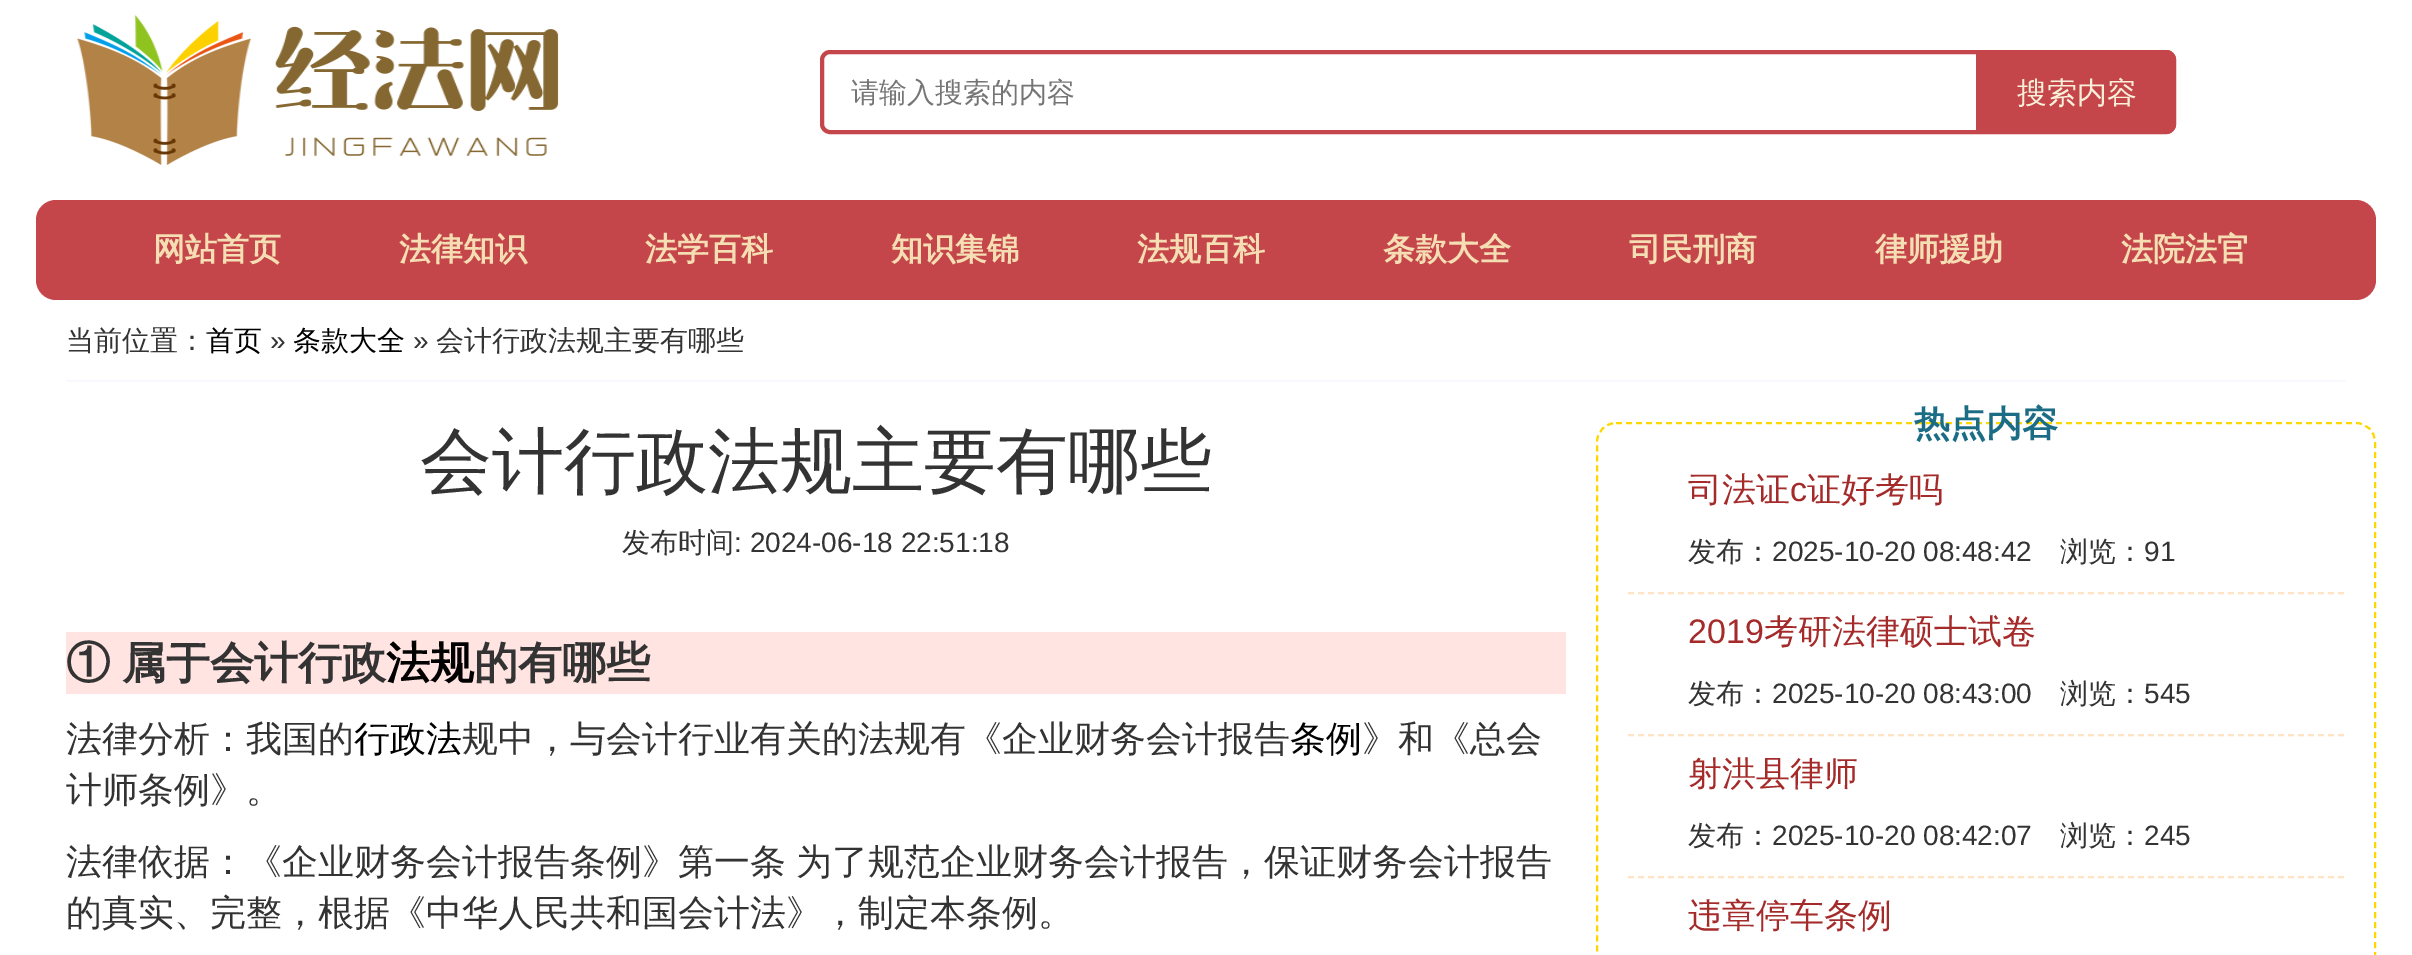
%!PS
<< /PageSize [2412 955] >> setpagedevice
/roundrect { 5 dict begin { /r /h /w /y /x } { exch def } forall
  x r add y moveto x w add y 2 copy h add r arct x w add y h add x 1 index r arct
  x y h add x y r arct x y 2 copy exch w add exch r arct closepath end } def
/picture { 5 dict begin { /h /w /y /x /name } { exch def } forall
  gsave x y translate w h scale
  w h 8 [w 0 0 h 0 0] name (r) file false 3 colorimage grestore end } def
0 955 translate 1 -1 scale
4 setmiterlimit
1 setgray
0 0 2412 955 rectfill
(img1.rgb) 77 15 482 150 picture
0.773 0.275 0.29 setrgbcolor
4 setlinewidth
822 52 1352 80 8 roundrect stroke
/WenQuanYiZenHei-Medium [28 0 0 -28 0 0] selectfont
0.459 setgray
851 102 moveto (请输入搜索的内容) show
0.773 0.275 0.29 setrgbcolor
newpath 1976 50 moveto 2166 50 lineto 2171.5 50 2176 54.5 2176 60 curveto 2176 124 lineto 2176 129.5 2171.5 134 2166 134 curveto 1976 134 lineto closepath fill
/WenQuanYiZenHei-Medium [30 0 0 -30 0 0] selectfont
0.976 0.941 0.855 setrgbcolor
2017 103 moveto (搜索内容) show
0.773 0.275 0.29 setrgbcolor
36 200 2340 100 20 roundrect fill
/WenQuanYiZenHei-Bold [32 0 0 -32 0 0] selectfont
0.961 0.871 0.702 setrgbcolor
153 260 moveto (网站首页) show
399 260 moveto (法律知识) show
645 260 moveto (法学百科) show
891 260 moveto (知识集锦) show
1137 260 moveto (法规百科) show
1383 260 moveto (条款大全) show
1629 260 moveto (司民刑商) show
1875 260 moveto (律师援助) show
2121 260 moveto (法院法官) show
0.973 0.973 1 setrgbcolor
66 380 2280 2 rectfill
/WenQuanYiZenHei-Medium [28 0 0 -28 0 0] selectfont
0.2 setgray
66 350 moveto (当前位置：) show
0 setgray
206 350 moveto (首页) show
/LiberationSans-Regular [28 0 0 -28 0 0] selectfont
0.2 setgray
270 350 moveto (») show
/WenQuanYiZenHei-Medium [28 0 0 -28 0 0] selectfont
0 setgray
293 350 moveto (条款大全) show
/LiberationSans-Regular [28 0 0 -28 0 0] selectfont
0.2 setgray
413 350 moveto (») show
/WenQuanYiZenHei-Medium [28 0 0 -28 0 0] selectfont
436 350 moveto (会计行政法规主要有哪些) show
/WenQuanYiZenHei-Medium [72 0 0 -72 0 0] selectfont
420 486 moveto (会计行政法规主要有哪些) show
/WenQuanYiZenHei-Medium [28 0 0 -28 0 0] selectfont
622 552 moveto (发布时间) show
/LiberationSans-Regular [28 0 0 -28 0 0] selectfont
734 552 moveto (: 2024-06-18 22:51:18) show
1 0.894 0.882 setrgbcolor
66 632 1500 62 rectfill
/WenQuanYiZenHei-Bold [44 0 0 -44 0 0] selectfont
0.2 setgray
66 678 moveto -1 0 32 (① 属于会计行政) widthshow
0 setgray
386 678 moveto (法规) show
0.2 setgray
474 678 moveto (的有哪些) show
/WenQuanYiZenHei-Medium [36 0 0 -36 0 0] selectfont
66 751 moveto (法律分析：我国的) show
0 setgray
354 751 moveto (行政法) show
0.2 setgray
462 751 moveto (规中，与会计行业有关的法规有《企业财务会计报告) show
0 setgray
1290 751 moveto (条例) show
0.2 setgray
1362 751 moveto (》和《总会) show
66 802 moveto (计师条例》。) show
66 874 moveto (法律依据：《企业财务会计报告条例》第一条) show
796 874 moveto (为了规范企业财务会计报告，保证财务会计报告) show
66 925 moveto (的真实、完整，根据《中华人民共和国会计法》，制定本条例。) show
1 0.843 0 setrgbcolor
2 setlinewidth
[6 4] 0 setdash
newpath 1616 423 moveto 2356 423 lineto 2366.5 423 2375 431.5 2375 442 curveto 2375 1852 lineto 2375 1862.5 2366.5 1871 2356 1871 curveto 1616 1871 lineto 1605.5 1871 1597 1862.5 1597 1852 curveto 1597 442 lineto 1597 431.5 1605.5 423 1616 423 curveto closepath stroke
/WenQuanYiZenHei-Bold [36 0 0 -36 0 0] selectfont
0.106 0.427 0.522 setrgbcolor
1914 436 moveto (热点内容) show
1 0.894 0.769 setrgbcolor
newpath 1628 593 moveto 2344 593 lineto stroke
/WenQuanYiZenHei-Medium [34 0 0 -34 0 0] selectfont
0.647 0.165 0.165 setrgbcolor
1688 501 moveto (司法证) show
/LiberationSans-Regular [34 0 0 -34 0 0] selectfont
1790 501 moveto (c) show
/WenQuanYiZenHei-Medium [34 0 0 -34 0 0] selectfont
1807 501 moveto (证好考吗) show
/WenQuanYiZenHei-Medium [28 0 0 -28 0 0] selectfont
0.2 setgray
1688 561 moveto (发布：) show
/LiberationSans-Regular [28 0 0 -28 0 0] selectfont
1772 561 moveto (2025-10-20 08:48:42) show
/WenQuanYiZenHei-Medium [28 0 0 -28 0 0] selectfont
2060 561 moveto (浏览：) show
/LiberationSans-Regular [28 0 0 -28 0 0] selectfont
2144 561 moveto (91) show
1 0.894 0.769 setrgbcolor
newpath 1628 735 moveto 2344 735 lineto stroke
/LiberationSans-Regular [34 0 0 -34 0 0] selectfont
0.647 0.165 0.165 setrgbcolor
1688 643 moveto (2019) show
/WenQuanYiZenHei-Medium [34 0 0 -34 0 0] selectfont
1764 643 moveto (考研法律硕士试卷) show
/WenQuanYiZenHei-Medium [28 0 0 -28 0 0] selectfont
0.2 setgray
1688 703 moveto (发布：) show
/LiberationSans-Regular [28 0 0 -28 0 0] selectfont
1772 703 moveto (2025-10-20 08:43:00) show
/WenQuanYiZenHei-Medium [28 0 0 -28 0 0] selectfont
2060 703 moveto (浏览：) show
/LiberationSans-Regular [28 0 0 -28 0 0] selectfont
2144 703 moveto (545) show
1 0.894 0.769 setrgbcolor
newpath 1628 877 moveto 2344 877 lineto stroke
/WenQuanYiZenHei-Medium [34 0 0 -34 0 0] selectfont
0.647 0.165 0.165 setrgbcolor
1688 785 moveto (射洪县律师) show
/WenQuanYiZenHei-Medium [28 0 0 -28 0 0] selectfont
0.2 setgray
1688 845 moveto (发布：) show
/LiberationSans-Regular [28 0 0 -28 0 0] selectfont
1772 845 moveto (2025-10-20 08:42:07) show
/WenQuanYiZenHei-Medium [28 0 0 -28 0 0] selectfont
2060 845 moveto (浏览：) show
/LiberationSans-Regular [28 0 0 -28 0 0] selectfont
2144 845 moveto (245) show
/WenQuanYiZenHei-Medium [34 0 0 -34 0 0] selectfont
0.647 0.165 0.165 setrgbcolor
1688 927 moveto (违章停车条例) show
showpage
